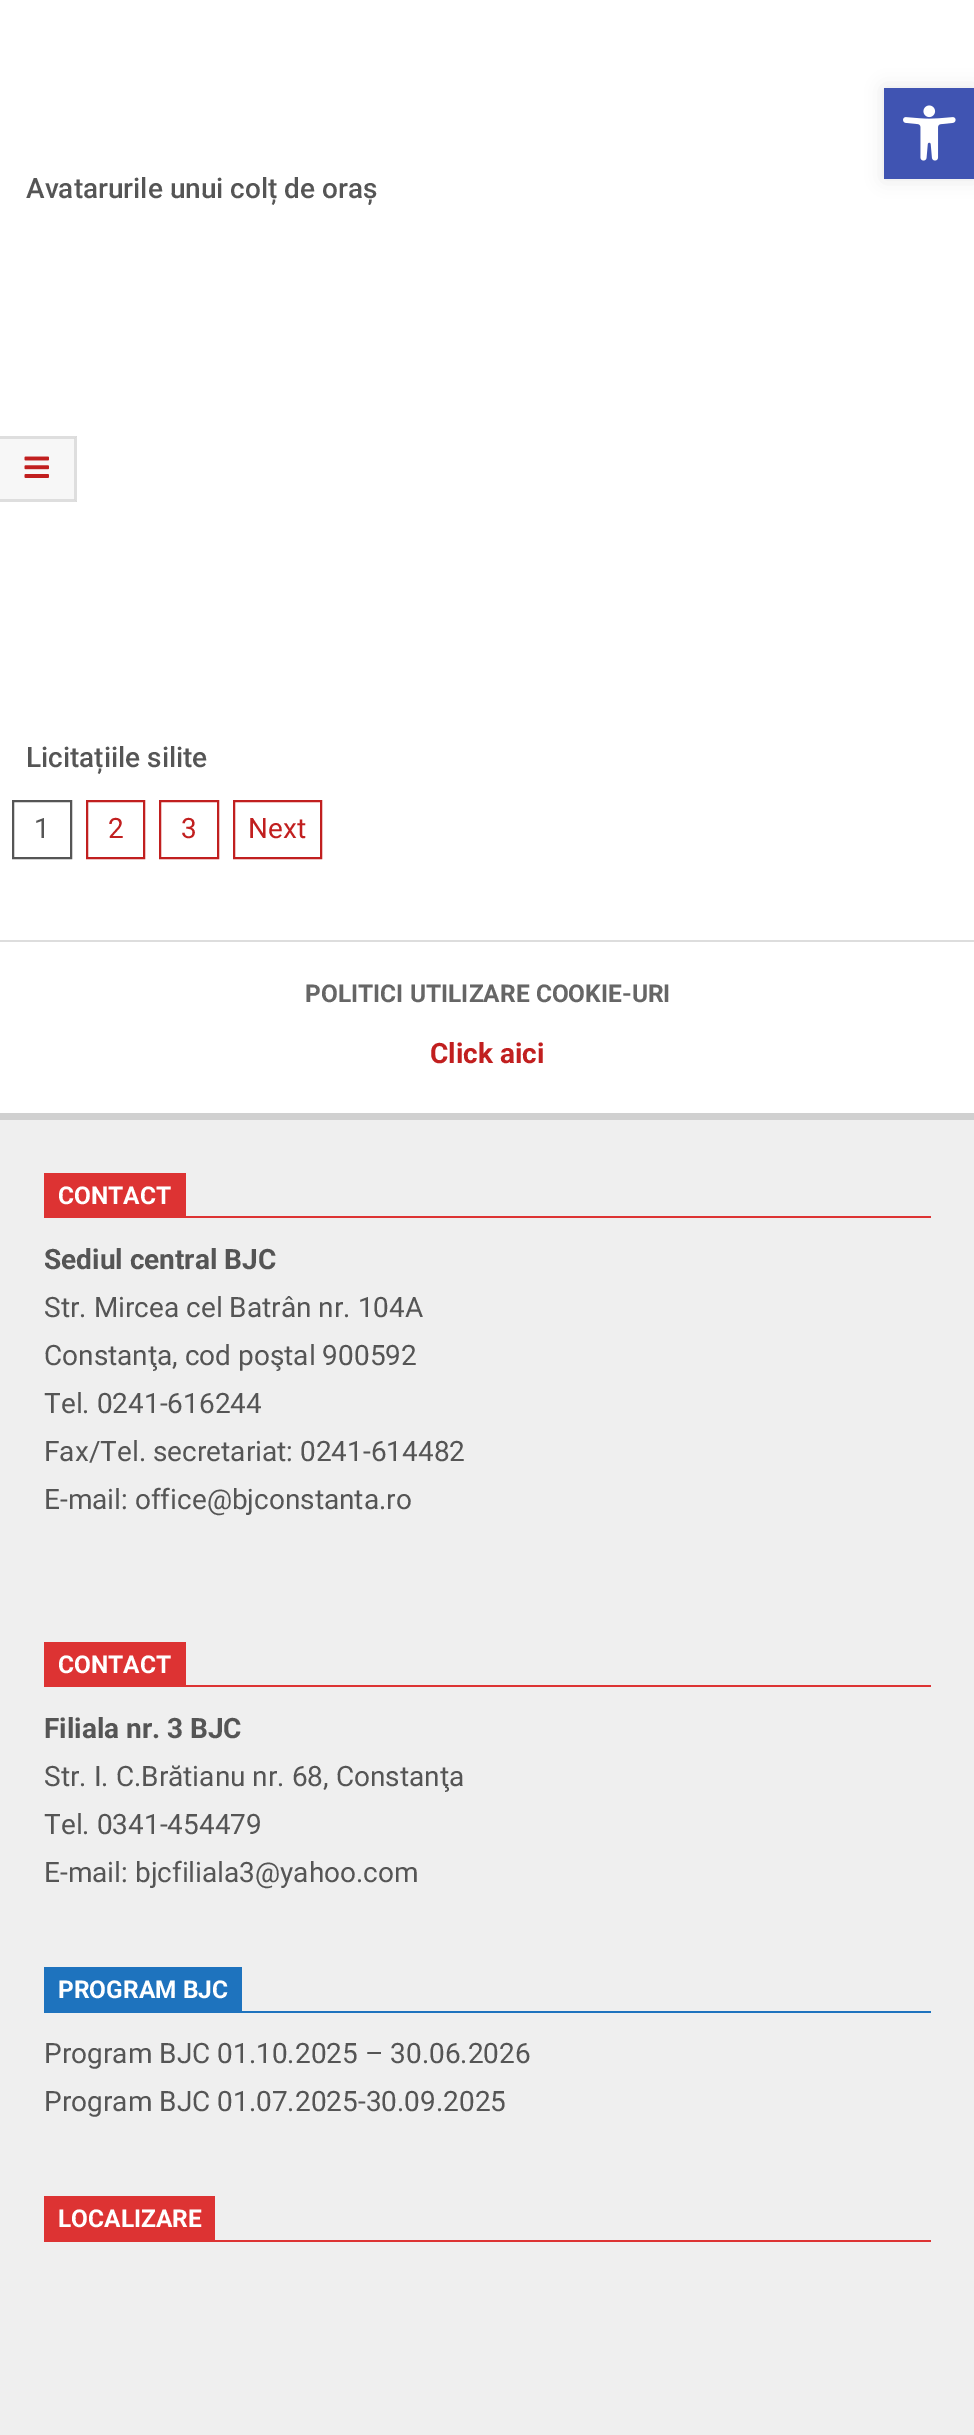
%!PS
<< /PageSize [974 2435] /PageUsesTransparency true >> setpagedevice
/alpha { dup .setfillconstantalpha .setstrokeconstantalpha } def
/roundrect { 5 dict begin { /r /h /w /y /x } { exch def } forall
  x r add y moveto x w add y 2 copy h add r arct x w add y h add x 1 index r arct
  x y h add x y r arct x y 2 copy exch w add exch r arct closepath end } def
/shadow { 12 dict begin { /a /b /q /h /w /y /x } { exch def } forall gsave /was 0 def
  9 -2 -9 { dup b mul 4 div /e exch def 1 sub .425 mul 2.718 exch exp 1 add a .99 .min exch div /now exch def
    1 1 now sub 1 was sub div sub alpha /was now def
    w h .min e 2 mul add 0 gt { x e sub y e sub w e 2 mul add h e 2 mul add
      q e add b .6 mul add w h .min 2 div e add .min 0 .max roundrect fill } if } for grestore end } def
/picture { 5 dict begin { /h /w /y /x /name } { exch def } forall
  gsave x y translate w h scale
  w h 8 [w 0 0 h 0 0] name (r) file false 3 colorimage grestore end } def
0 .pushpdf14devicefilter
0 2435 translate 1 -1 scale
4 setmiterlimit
1 setgray
0 0 974 2435 rectfill
0 setgray
884 88 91 91 0 9 0.1 shadow
0.251 0.329 0.698 setrgbcolor
884 88 90 91 rectfill
(img1.rgb) 903 105 53 56 picture
/Roboto-Medium [28 0 0 -28 0 0] selectfont
0.333 setgray
26 198 moveto (Avatarurile unui colț de oraș) show
26 767 moveto (Licitațiile silite) show
2 setlinewidth
13 801 58 57 rectstroke
/Roboto-Regular [28 0 0 -28 0 0] selectfont
34 838 moveto (1) show
0.757 0.122 0.122 setrgbcolor
87 801 57 57 rectstroke
108 838 moveto (2) show
160 801 58 57 rectstroke
181 838 moveto (3) show
234 801 87 57 rectstroke
248 838 moveto (Next) show
0.969 setgray
0 436 77 66 rectfill
0.871 setgray
newpath 0 436 moveto 77 436 lineto 74 439 lineto 0 439 lineto closepath fill
0.1 alpha
0 setgray
newpath 77 436 moveto 77 502 lineto 74 499 lineto 74 439 lineto closepath fill
newpath 77 502 moveto 0 502 lineto 0 499 lineto 74 499 lineto closepath fill
1 alpha
(img2.rgb) 24 456 25 22 picture
0.867 setgray
0 940 974 2 rectfill
/Roboto-Bold [24.5 0 0 -24.5 0 0] selectfont
0.4 setgray
305 1002 moveto (POLITICI UTILIZARE COOKIE-URI) show
/Roboto-Bold [28 0 0 -28 0 0] selectfont
0.757 0.122 0.122 setrgbcolor
430 1063 moveto (Click aici) show
0.937 setgray
0 1120 974 1315 rectfill
0.816 setgray
0 1113 974 7 rectfill
0.867 0.2 0.2 setrgbcolor
44 1173 142 43 rectfill
/Roboto-Bold [24.5 0 0 -24.5 0 0] selectfont
1 setgray
58 1204 moveto (CONTACT) show
0.867 0.2 0.2 setrgbcolor
44 1216 887 2 rectfill
/Roboto-Bold [28 0 0 -28 0 0] selectfont
0.333 setgray
44 1269 moveto (Sediul central BJC) show
/Roboto-Regular [28 0 0 -28 0 0] selectfont
44 1317 moveto (Str. Mircea cel Batrân nr. 104A) show
44 1365 moveto (Constanţa, cod poştal 900592) show
44 1413 moveto (Tel. 0241-616244) show
44 1461 moveto (Fax/Tel. secretariat: 0241-614482) show
44 1509 moveto (E-mail: office@bjconstanta.ro) show
0.867 0.2 0.2 setrgbcolor
44 1642 142 43 rectfill
/Roboto-Bold [24.5 0 0 -24.5 0 0] selectfont
1 setgray
58 1673 moveto (CONTACT) show
0.867 0.2 0.2 setrgbcolor
44 1685 887 2 rectfill
/Roboto-Bold [28 0 0 -28 0 0] selectfont
0.333 setgray
44 1738 moveto (Filiala nr. 3 BJC) show
/Roboto-Regular [28 0 0 -28 0 0] selectfont
44 1786 moveto (Str. I. C.Brătianu nr. 68, Constanţa) show
44 1834 moveto (Tel. 0341-454479) show
44 1882 moveto (E-mail: bjcfiliala3@yahoo.com) show
0.118 0.451 0.745 setrgbcolor
44 1967 198 44 rectfill
/Roboto-Bold [24.5 0 0 -24.5 0 0] selectfont
1 setgray
58 1998 moveto (PROGRAM BJC) show
0.118 0.451 0.745 setrgbcolor
44 2011 887 2 rectfill
/Roboto-Regular [28 0 0 -28 0 0] selectfont
0.333 setgray
44 2063 moveto (Program BJC 01.10.2025 – 30.06.2026) show
44 2111 moveto (Program BJC 01.07.2025-30.09.2025) show
0.867 0.2 0.2 setrgbcolor
44 2196 171 44 rectfill
/Roboto-Bold [24.5 0 0 -24.5 0 0] selectfont
1 setgray
58 2227 moveto (LOCALIZARE) show
0.867 0.2 0.2 setrgbcolor
44 2240 887 2 rectfill
.poppdf14devicefilter showpage
